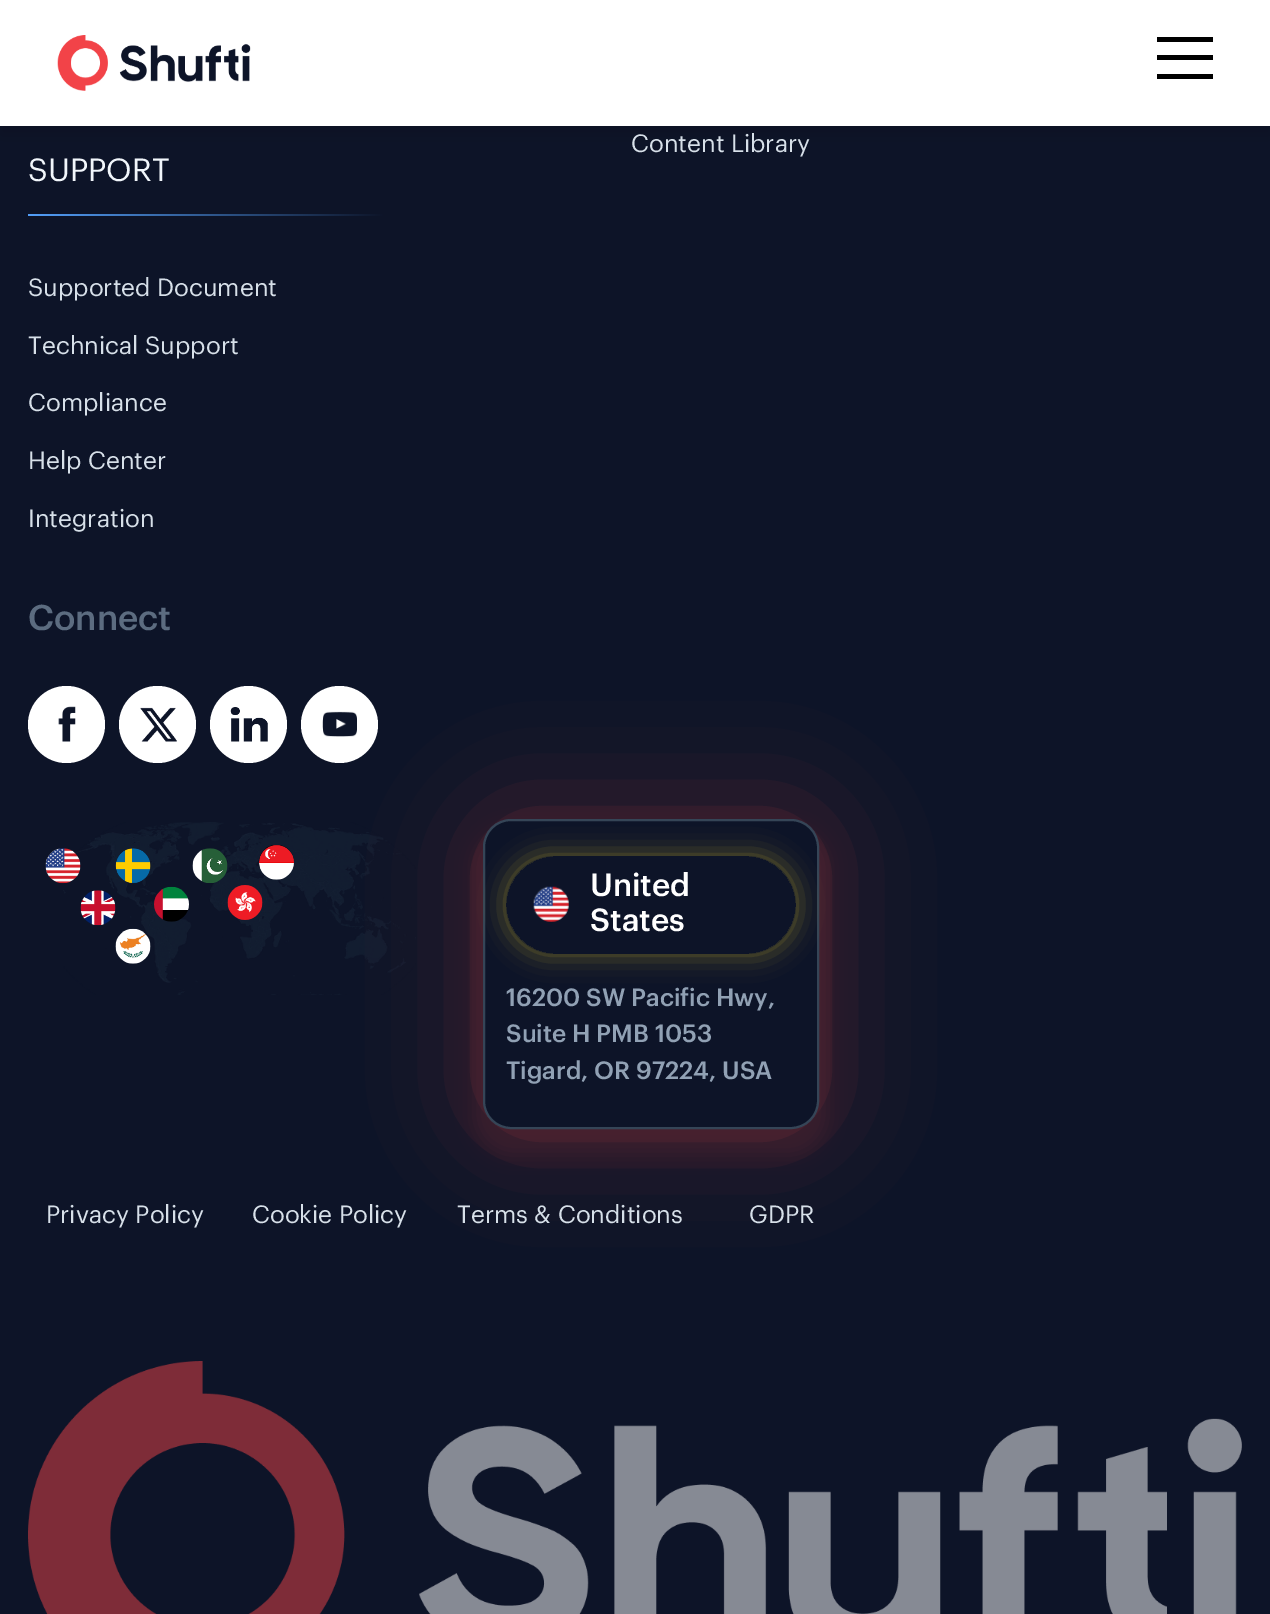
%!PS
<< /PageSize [1270 1614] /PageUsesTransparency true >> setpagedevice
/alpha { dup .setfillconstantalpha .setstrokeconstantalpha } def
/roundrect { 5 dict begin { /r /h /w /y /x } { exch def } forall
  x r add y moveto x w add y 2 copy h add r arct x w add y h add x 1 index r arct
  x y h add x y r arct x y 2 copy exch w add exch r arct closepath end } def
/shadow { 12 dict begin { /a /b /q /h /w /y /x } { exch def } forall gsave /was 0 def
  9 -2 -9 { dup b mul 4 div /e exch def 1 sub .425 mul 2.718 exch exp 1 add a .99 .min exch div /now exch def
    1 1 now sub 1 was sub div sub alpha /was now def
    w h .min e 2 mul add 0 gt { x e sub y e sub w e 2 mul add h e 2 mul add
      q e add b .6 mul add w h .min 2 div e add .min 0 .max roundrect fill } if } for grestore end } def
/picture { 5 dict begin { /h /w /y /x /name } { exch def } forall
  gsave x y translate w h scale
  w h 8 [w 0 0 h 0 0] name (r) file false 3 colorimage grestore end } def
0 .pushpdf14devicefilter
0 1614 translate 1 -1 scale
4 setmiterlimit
0.051 0.078 0.157 setrgbcolor
0 0 1270 1614 rectfill
0 setgray
0 9 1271 126 0 9 0.15 shadow
1 setgray
0 0 1270 126 rectfill
(img1.rgb) 57 35 194 56 picture
0 setgray
1157 37 56 5 rectfill
1157 55 56 5 rectfill
1157 74 56 5 rectfill
/Graphik-Italic [24.5 0 0 -24.5 0 0] selectfont
0.843 0.878 0.914 setrgbcolor
631 152 moveto (Content Library) show
/Graphik-Italic [31.5 0 0 -31.5 0 0] selectfont
0.945 0.965 0.984 setrgbcolor
28 181 moveto (SUPPORT) show
gsave newpath 28 214 moveto 385 214 lineto 385 216 lineto 28 216 lineto closepath clip newpath
<< /ShadingType 2 /ColorSpace /DeviceRGB /Coords [28 214 385 214] /Extend [true true] /Function << /FunctionType 2 /Domain [0 1] /C0 [0.325 0.624 0.976] /C1 [0.051 0.078 0.157] /N 1 >> >> shfill grestore
/Graphik-Italic [24.5 0 0 -24.5 0 0] selectfont
0.843 0.878 0.914 setrgbcolor
28 296 moveto (Supported Document) show
28 354 moveto (Technical Support) show
28 411 moveto (Compliance) show
28 469 moveto (Help Center) show
28 527 moveto (Integration) show
/Graphik-Medium [35 0 0 -35 0 0] selectfont
0.361 0.424 0.502 setrgbcolor
28 630 moveto (Connect) show
1 setgray
newpath 66.5 724.5 38.5 0 360 arc closepath fill
(img2.rgb) 58 706 18 36 picture
newpath 157.5 724.5 38.5 0 360 arc closepath fill
(img3.rgb) 140 707 37 35 picture
newpath 248.5 724.5 38.5 0 360 arc closepath fill
(img4.rgb) 230 707 38 35 picture
newpath 339.5 724.5 38.5 0 360 arc closepath fill
(img5.rgb) 322 711 35 26 picture
(img6.rgb) 63 822 353 173 picture
(img7.rgb) 45 848 36 36 picture
(img8.rgb) 115 848 36 36 picture
(img9.rgb) 192 848 36 35 picture
(img10.rgb) 259 845 35 35 picture
(img11.rgb) 80 890 36 36 picture
(img12.rgb) 154 886 35 36 picture
(img13.rgb) 227 885 36 35 picture
(img14.rgb) 115 928 36 36 picture
gsave
newpath 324 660 moveto 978 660 lineto 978 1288 lineto 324 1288 lineto closepath 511 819 moveto 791 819 lineto 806.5 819 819 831.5 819 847 curveto 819 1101 lineto 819 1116.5 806.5 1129 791 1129 curveto 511 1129 lineto 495.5 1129 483 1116.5 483 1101 curveto 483 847 lineto 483 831.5 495.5 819 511 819 curveto closepath eoclip newpath
0.949 0.263 0.282 setrgbcolor
483 819 336 310 28 52.5 0.32 shadow
grestore
gsave
newpath 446 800 moveto 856 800 lineto 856 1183 lineto 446 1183 lineto closepath 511 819 moveto 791 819 lineto 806.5 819 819 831.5 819 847 curveto 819 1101 lineto 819 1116.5 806.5 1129 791 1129 curveto 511 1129 lineto 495.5 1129 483 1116.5 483 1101 curveto 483 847 lineto 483 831.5 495.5 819 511 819 curveto closepath eoclip newpath
0.949 0.263 0.282 setrgbcolor
474 828 354 327 37 9 0.1 shadow
grestore
0.8 alpha
0.051 0.078 0.157 setrgbcolor
484 820 334 308 27 roundrect fill
1 alpha
0.208 0.271 0.341 setrgbcolor
2 setlinewidth
484 820 334 308 27 roundrect stroke
gsave
newpath 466 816 moveto 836 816 lineto 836 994 lineto 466 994 lineto closepath 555 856 moveto 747 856 lineto 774 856 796 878 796 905 curveto 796 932 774 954 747 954 curveto 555 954 lineto 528 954 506 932 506 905 curveto 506 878 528 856 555 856 curveto closepath eoclip newpath
0.98 0.851 0.169 setrgbcolor
506 856 290 98 49 13 0.4 shadow
grestore
0.5 alpha
0.051 0.078 0.157 setrgbcolor
506 856 290 98 49 roundrect fill
1 alpha
(img15.rgb) 533 886 36 36 picture
/Graphik-Medium [31.5 0 0 -31.5 0 0] selectfont
1 setgray
590 896 moveto (United) show
590 931 moveto (States) show
/Graphik-Medium [24.5 0 0 -24.5 0 0] selectfont
0.569 0.631 0.706 setrgbcolor
506 1006 moveto (16200 SW Pacific Hwy,) show
506 1042 moveto (Suite H PMB 1053) show
506 1079 moveto (Tigard, OR 97224, USA) show
/Graphik-Italic [24.5 0 0 -24.5 0 0] selectfont
0.843 0.878 0.914 setrgbcolor
46 1223 moveto (Privacy Policy) show
252 1223 moveto (Cookie Policy) show
457 1223 moveto (Terms & Conditions) show
749 1223 moveto (GDPR) show
(img16.rgb) 28 1361 1214 253 picture
.poppdf14devicefilter showpage
